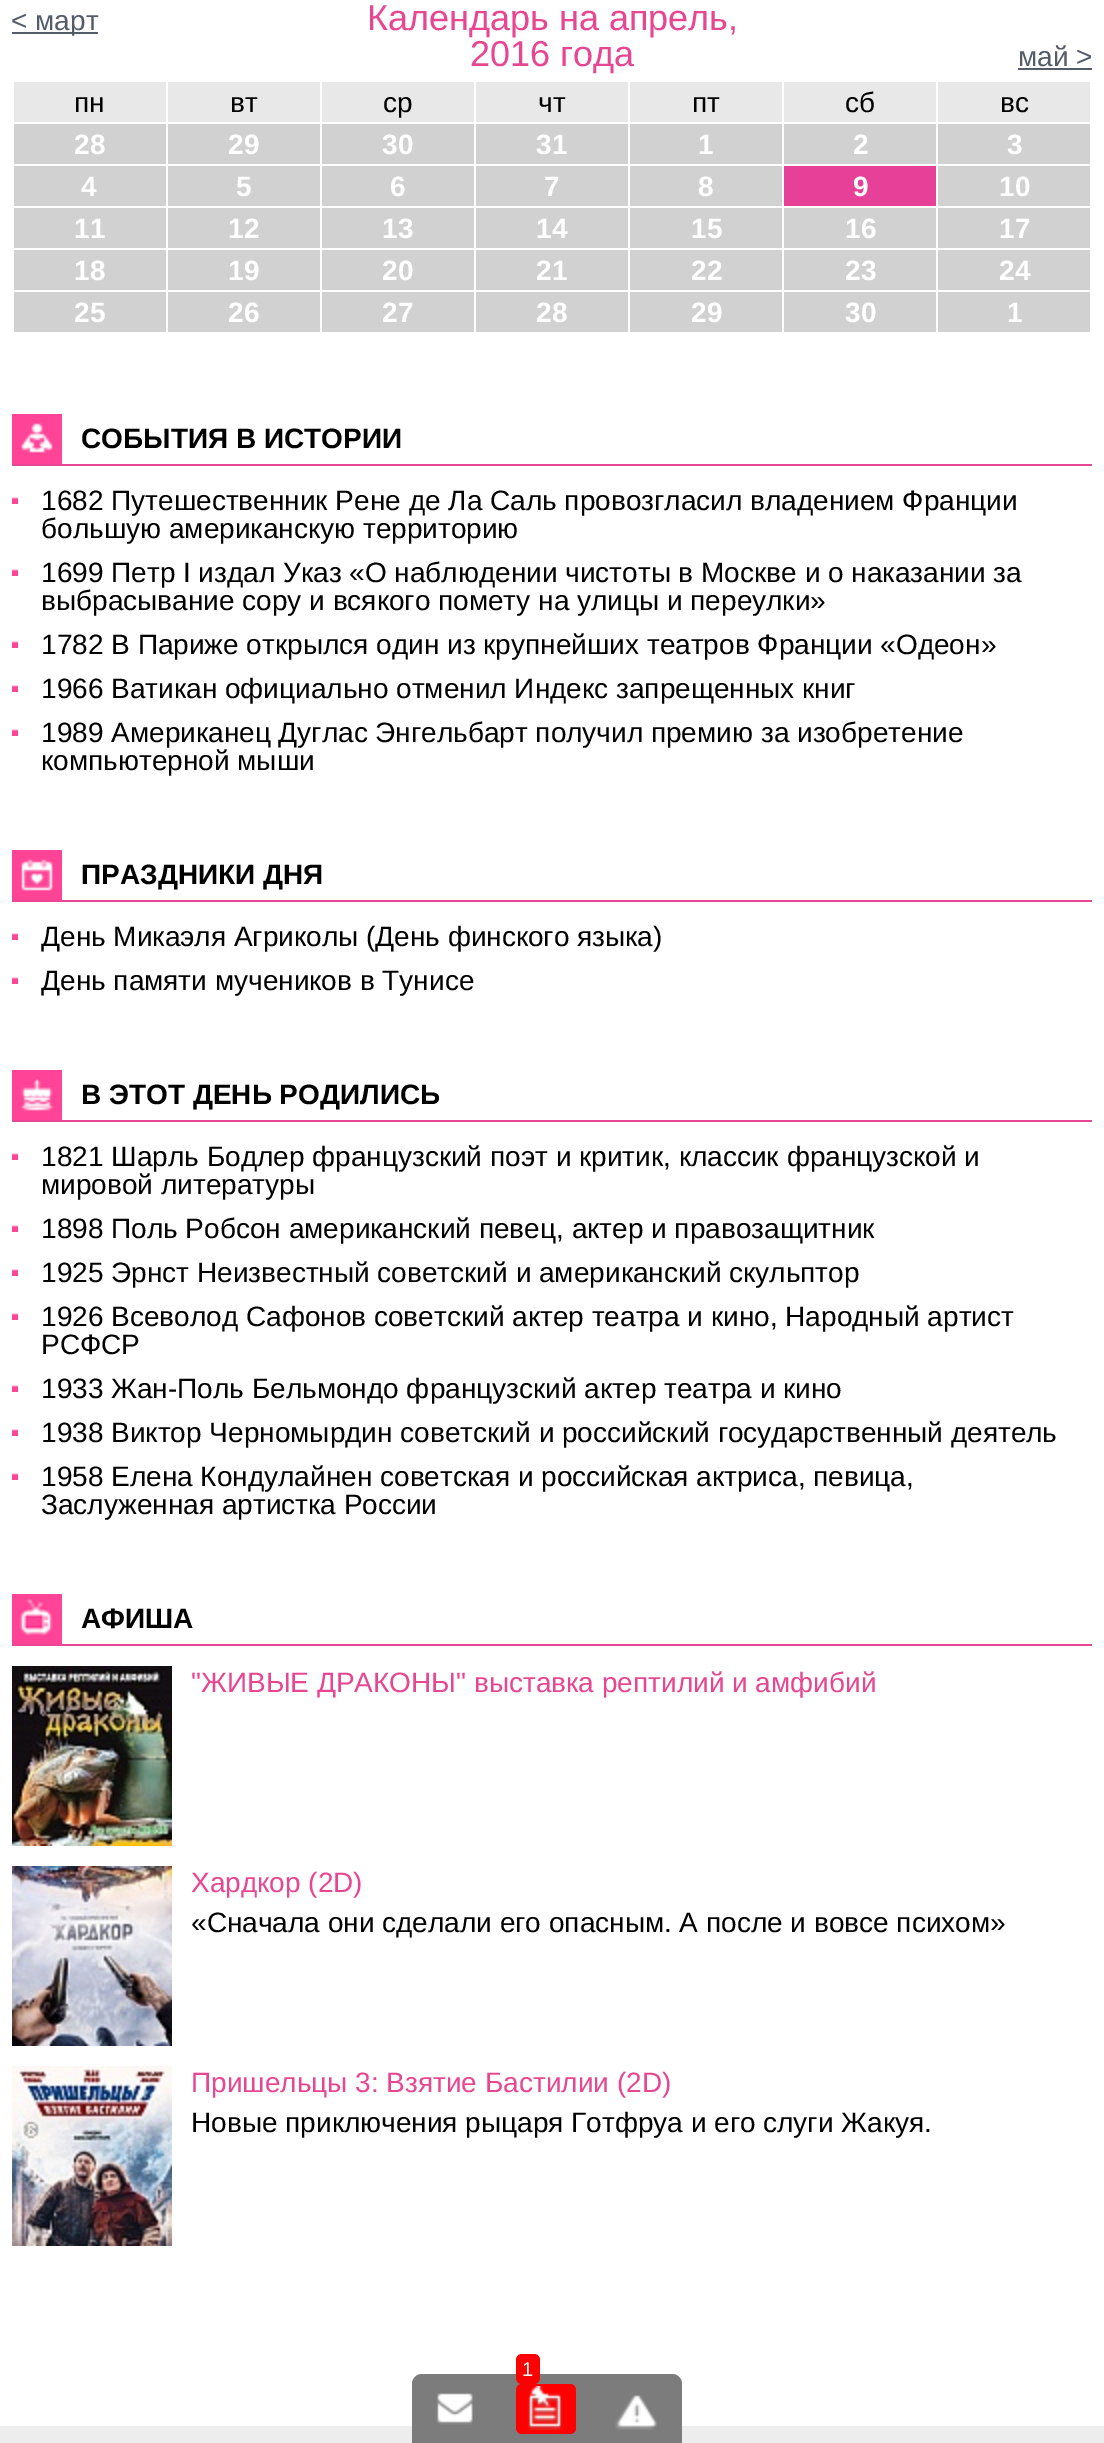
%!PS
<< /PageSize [1104 2443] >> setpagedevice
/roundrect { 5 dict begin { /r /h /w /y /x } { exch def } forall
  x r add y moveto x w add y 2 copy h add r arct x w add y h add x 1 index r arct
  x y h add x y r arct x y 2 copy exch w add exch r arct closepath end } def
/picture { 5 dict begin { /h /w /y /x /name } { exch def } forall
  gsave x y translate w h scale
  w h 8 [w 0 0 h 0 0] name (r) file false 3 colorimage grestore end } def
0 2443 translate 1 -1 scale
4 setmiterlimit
1 setgray
0 0 1104 2443 rectfill
0.333 0.361 0.412 setrgbcolor
12 32 86 2 rectfill
/LiberationSans-Regular [28 0 0 -28 0 0] selectfont
11 30 moveto (< март) show
/LiberationSans-Regular [36 0 0 -36 0 0] selectfont
0.906 0.275 0.576 setrgbcolor
367 30 moveto (Календарь на апрель,) show
470 66 moveto (2016 года) show
/LiberationSans-Regular [28 0 0 -28 0 0] selectfont
0.333 0.361 0.412 setrgbcolor
1018 66 moveto (май >) show
1018 68 74 2 rectfill
0.91 setgray
14 82 152 40 rectfill
0 setgray
74 112 moveto (пн) show
0.91 setgray
168 82 152 40 rectfill
0 setgray
230 112 moveto (вт) show
0.91 setgray
322 82 152 40 rectfill
0 setgray
383 112 moveto (ср) show
0.91 setgray
476 82 152 40 rectfill
0 setgray
538 112 moveto (чт) show
0.91 setgray
630 82 152 40 rectfill
0 setgray
692 112 moveto (пт) show
0.91 setgray
784 82 152 40 rectfill
0 setgray
845 112 moveto (сб) show
0.91 setgray
938 82 152 40 rectfill
0 setgray
1000 112 moveto (вс) show
0.82 setgray
14 124 152 40 rectfill
/LiberationSans-Bold [28 0 0 -28 0 0] selectfont
1 setgray
74 154 moveto (28) show
0.82 setgray
168 124 152 40 rectfill
1 setgray
228 154 moveto (29) show
0.82 setgray
322 124 152 40 rectfill
1 setgray
382 154 moveto (30) show
0.82 setgray
476 124 152 40 rectfill
1 setgray
536 154 moveto (31) show
0.82 setgray
630 124 152 40 rectfill
1 setgray
698 154 moveto (1) show
0.82 setgray
784 124 152 40 rectfill
1 setgray
853 154 moveto (2) show
0.82 setgray
938 124 152 40 rectfill
1 setgray
1007 154 moveto (3) show
0.82 setgray
14 166 152 40 rectfill
1 setgray
81 196 moveto (4) show
0.82 setgray
168 166 152 40 rectfill
1 setgray
236 196 moveto (5) show
0.82 setgray
322 166 152 40 rectfill
1 setgray
390 196 moveto (6) show
0.82 setgray
476 166 152 40 rectfill
1 setgray
544 196 moveto (7) show
0.82 setgray
630 166 152 40 rectfill
1 setgray
698 196 moveto (8) show
0.902 0.251 0.596 setrgbcolor
784 166 152 40 rectfill
1 setgray
853 196 moveto (9) show
0.82 setgray
938 166 152 40 rectfill
1 setgray
999 196 moveto (10) show
0.82 setgray
14 208 152 40 rectfill
1 setgray
74 238 moveto (11) show
0.82 setgray
168 208 152 40 rectfill
1 setgray
228 238 moveto (12) show
0.82 setgray
322 208 152 40 rectfill
1 setgray
382 238 moveto (13) show
0.82 setgray
476 208 152 40 rectfill
1 setgray
536 238 moveto (14) show
0.82 setgray
630 208 152 40 rectfill
1 setgray
691 238 moveto (15) show
0.82 setgray
784 208 152 40 rectfill
1 setgray
845 238 moveto (16) show
0.82 setgray
938 208 152 40 rectfill
1 setgray
999 238 moveto (17) show
0.82 setgray
14 250 152 40 rectfill
1 setgray
74 280 moveto (18) show
0.82 setgray
168 250 152 40 rectfill
1 setgray
228 280 moveto (19) show
0.82 setgray
322 250 152 40 rectfill
1 setgray
382 280 moveto (20) show
0.82 setgray
476 250 152 40 rectfill
1 setgray
536 280 moveto (21) show
0.82 setgray
630 250 152 40 rectfill
1 setgray
691 280 moveto (22) show
0.82 setgray
784 250 152 40 rectfill
1 setgray
845 280 moveto (23) show
0.82 setgray
938 250 152 40 rectfill
1 setgray
999 280 moveto (24) show
0.82 setgray
14 292 152 40 rectfill
1 setgray
74 322 moveto (25) show
0.82 setgray
168 292 152 40 rectfill
1 setgray
228 322 moveto (26) show
0.82 setgray
322 292 152 40 rectfill
1 setgray
382 322 moveto (27) show
0.82 setgray
476 292 152 40 rectfill
1 setgray
536 322 moveto (28) show
0.82 setgray
630 292 152 40 rectfill
1 setgray
691 322 moveto (29) show
0.82 setgray
784 292 152 40 rectfill
1 setgray
845 322 moveto (30) show
0.82 setgray
938 292 152 40 rectfill
1 setgray
1007 322 moveto (1) show
0.906 0.275 0.576 setrgbcolor
12 464 1080 2 rectfill
(img1.rgb) 12 414 50 50 picture
0 setgray
81 448 moveto (СОБЫТИЯ В ИСТОРИИ) show
(img2.rgb) 12 497 6 7 picture
/LiberationSans-Regular [28 0 0 -28 0 0] selectfont
41 510 moveto (1682 Путешественник Рене де Ла Саль провозгласил владением Франции) show
41 538 moveto (большую американскую территорию) show
(img2.rgb) 12 569 6 7 picture
41 582 moveto (1699 Петр I издал Указ «О наблюдении чистоты в Москве и о наказании за) show
41 610 moveto (выбрасывание сору и всякого помету на улицы и переулки») show
(img2.rgb) 12 641 6 7 picture
41 654 moveto (1782 В Париже открылся один из крупнейших театров Франции «Одеон») show
(img2.rgb) 12 685 6 7 picture
41 698 moveto (1966 Ватикан официально отменил Индекс запрещенных книг) show
(img2.rgb) 12 729 6 7 picture
41 742 moveto (1989 Американец Дуглас Энгельбарт получил премию за изобретение) show
41 770 moveto (компьютерной мыши) show
0.906 0.275 0.576 setrgbcolor
12 900 1080 2 rectfill
(img3.rgb) 12 850 50 50 picture
/LiberationSans-Bold [28 0 0 -28 0 0] selectfont
0 setgray
81 884 moveto (ПРАЗДНИКИ ДНЯ) show
(img2.rgb) 12 933 6 7 picture
/LiberationSans-Regular [28 0 0 -28 0 0] selectfont
41 946 moveto (День Микаэля Агриколы \(День финского языка\)) show
(img2.rgb) 12 977 6 7 picture
41 990 moveto (День памяти мучеников в Тунисе) show
0.906 0.275 0.576 setrgbcolor
12 1120 1080 2 rectfill
(img4.rgb) 12 1070 50 50 picture
/LiberationSans-Bold [28 0 0 -28 0 0] selectfont
0 setgray
81 1104 moveto (В ЭТОТ ДЕНЬ РОДИЛИСЬ) show
(img2.rgb) 12 1153 6 7 picture
/LiberationSans-Regular [28 0 0 -28 0 0] selectfont
41 1166 moveto (1821 Шарль Бодлер французский поэт и критик, классик французской и) show
41 1194 moveto (мировой литературы) show
(img2.rgb) 12 1225 6 7 picture
41 1238 moveto (1898 Поль Робсон американский певец, актер и правозащитник) show
(img2.rgb) 12 1269 6 7 picture
41 1282 moveto (1925 Эрнст Неизвестный советский и американский скульптор) show
(img2.rgb) 12 1313 6 7 picture
41 1326 moveto (1926 Всеволод Сафонов советский актер театра и кино, Народный артист) show
41 1354 moveto (РСФСР) show
(img2.rgb) 12 1385 6 7 picture
41 1398 moveto (1933 Жан-Поль Бельмондо французский актер театра и кино) show
(img2.rgb) 12 1429 6 7 picture
41 1442 moveto (1938 Виктор Черномырдин советский и российский государственный деятель) show
(img2.rgb) 12 1473 6 7 picture
41 1486 moveto (1958 Елена Кондулайнен советская и российская актриса, певица,) show
41 1514 moveto (Заслуженная артистка России) show
0.906 0.275 0.576 setrgbcolor
12 1644 1080 2 rectfill
(img5.rgb) 12 1594 50 50 picture
/LiberationSans-Bold [28 0 0 -28 0 0] selectfont
0 setgray
81 1628 moveto (АФИША) show
(img6.rgb) 12 1666 160 180 picture
/LiberationSans-Regular [28 0 0 -28 0 0] selectfont
0.906 0.275 0.576 setrgbcolor
191 1692 moveto ("ЖИВЫЕ ДРАКОНЫ" выставка рептилий и амфибий) show
(img7.rgb) 12 1866 160 180 picture
191 1892 moveto (Хардкор \(2D\)) show
0 setgray
191 1932 moveto («Сначала они сделали его опасным. А после и вовсе психом») show
(img8.rgb) 12 2066 160 180 picture
0.906 0.275 0.576 setrgbcolor
191 2092 moveto (Пришельцы 3: Взятие Бастилии \(2D\)) show
0 setgray
191 2132 moveto (Новые приключения рыцаря Готфруа и его слуги Жакуя.) show
0.929 setgray
0 2426 1104 17 rectfill
0.486 setgray
newpath 422 2374 moveto 672 2374 lineto 677.5 2374 682 2378.5 682 2384 curveto 682 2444 lineto 412 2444 lineto 412 2384 lineto 412 2378.5 416.5 2374 422 2374 curveto closepath fill
1 0 0 setrgbcolor
516 2384 60 50 6 roundrect fill
(img9.rgb) 527 2386 36 44 picture
516 2354 24 30 6 roundrect fill
/LiberationSans-Regular [20 0 0 -20 0 0] selectfont
1 setgray
522 2376 moveto (1) show
(img10.rgb) 436 2393 37 32 picture
(img11.rgb) 615 2395 42 35 picture
showpage
